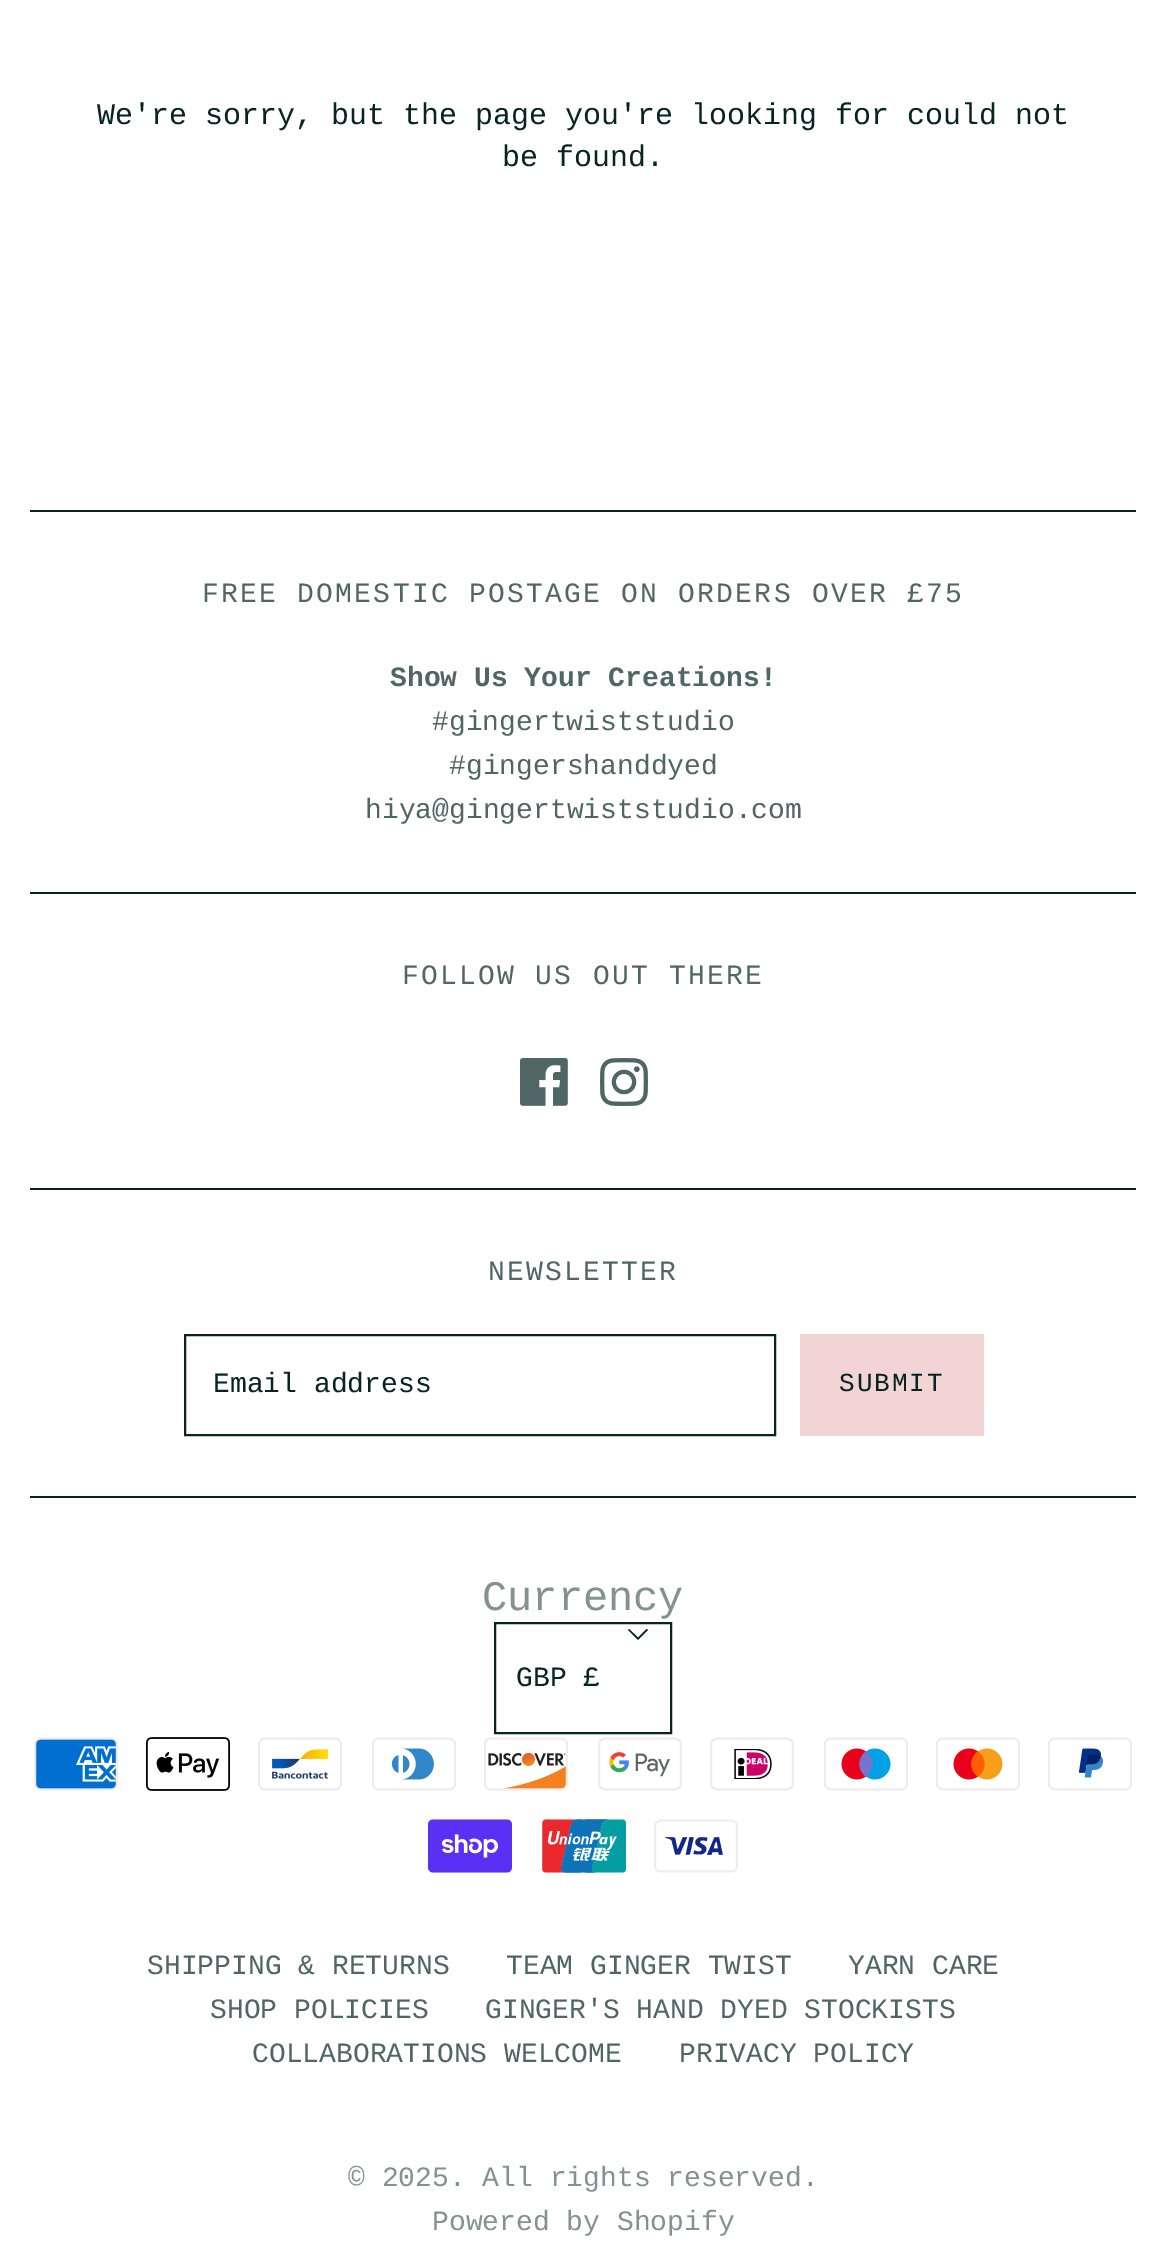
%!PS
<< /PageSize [1165 2258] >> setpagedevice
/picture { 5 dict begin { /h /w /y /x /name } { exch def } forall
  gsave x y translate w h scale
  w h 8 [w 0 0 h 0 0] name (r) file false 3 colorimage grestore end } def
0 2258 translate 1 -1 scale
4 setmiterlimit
1 setgray
0 0 1165 2258 rectfill
/LiberationMono-Regular [30 0 0 -30 0 0] selectfont
0.02 0.141 0.133 setrgbcolor
97 124 moveto (We're sorry, but the page you're looking for could not) show
502 166 moveto (be found.) show
30 510 1106 2 rectfill
30 1496 1106 2 rectfill
/LiberationMono-Regular [28 0 0 -28 0 0] selectfont
0.314 0.4 0.392 setrgbcolor
202 602 moveto 2.25 0 (FREE DOMESTIC POSTAGE ON ORDERS OVER £75) ashow
/LiberationMono-Bold [28 0 0 -28 0 0] selectfont
390 686 moveto (Show Us Your Creations!) show
/LiberationMono-Regular [28 0 0 -28 0 0] selectfont
432 730 moveto (#gingertwiststudio) show
449 774 moveto (#gingershanddyed) show
365 818 moveto (hiya@gingertwiststudio.com) show
0.02 0.141 0.133 setrgbcolor
30 892 1106 2 rectfill
0.314 0.4 0.392 setrgbcolor
402 984 moveto 2.25 0 (FOLLOW US OUT THERE) ashow
(img1.rgb) 520 1058 48 48 picture
(img2.rgb) 600 1058 48 48 picture
0.02 0.141 0.133 setrgbcolor
30 1188 1106 2 rectfill
0.314 0.4 0.392 setrgbcolor
488 1280 moveto 2.25 0 (NEWSLETTER) ashow
0.02 0.141 0.133 setrgbcolor
2 setlinewidth
185 1335 590 100 rectstroke
213 1392 moveto (Email address) show
0.953 0.831 0.835 setrgbcolor
800 1334 184 102 rectfill
/LiberationMono-Regular [26 0 0 -26 0 0] selectfont
0.02 0.141 0.133 setrgbcolor
839 1391 moveto 2 0 (SUBMIT) ashow
/LiberationMono-Regular [42 0 0 -42 0 0] selectfont
0.51 0.573 0.569 setrgbcolor
482 1610 moveto (Currency) show
0.02 0.141 0.133 setrgbcolor
495 1623 176 110 rectstroke
newpath 638 1637.5 moveto 646.5 1629 lineto 648 1630 lineto 638 1640 lineto 628 1630 lineto 629 1629 lineto closepath fill
/LiberationMono-Regular [28 0 0 -28 0 0] selectfont
516 1686 moveto (GBP £) show
(img3.rgb) 34 1737 84 54 picture
(img4.rgb) 146 1737 84 54 picture
(img5.rgb) 258 1737 84 54 picture
(img6.rgb) 372 1737 84 54 picture
(img7.rgb) 484 1737 84 54 picture
(img8.rgb) 598 1737 84 54 picture
(img9.rgb) 710 1737 84 54 picture
(img10.rgb) 824 1737 84 54 picture
(img11.rgb) 936 1737 84 54 picture
(img12.rgb) 1048 1737 84 54 picture
(img13.rgb) 428 1819 84 54 picture
(img14.rgb) 542 1819 84 54 picture
(img15.rgb) 654 1819 84 54 picture
0.314 0.4 0.392 setrgbcolor
147 1974 moveto (SHIPPING & RETURNS) show
506 1974 moveto (TEAM GINGER TWIST) show
848 1974 moveto (YARN CARE) show
210 2018 moveto (SHOP POLICIES) show
485 2018 moveto (GINGER'S HAND DYED STOCKISTS) show
252 2062 moveto (COLLABORATIONS WELCOME) show
679 2062 moveto (PRIVACY POLICY) show
0.51 0.573 0.569 setrgbcolor
348 2186 moveto (© 2025. All rights reserved.) show
432 2230 moveto (Powered by Shopify) show
showpage
